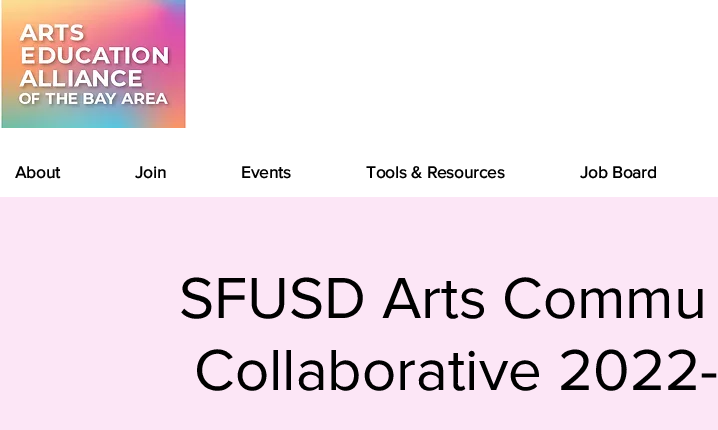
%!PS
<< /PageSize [718 430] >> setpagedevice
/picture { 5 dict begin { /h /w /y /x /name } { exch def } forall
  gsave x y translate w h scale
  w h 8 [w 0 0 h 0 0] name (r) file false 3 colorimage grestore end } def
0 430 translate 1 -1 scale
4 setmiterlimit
1 setgray
0 0 718 430 rectfill
(img1.rgb) 0 0 187 128 picture
/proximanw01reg-Bold [17 0 0 -17 0 0] selectfont
0 setgray
15 178 moveto (About) show
135 178 moveto (Join) show
241 178 moveto (Events) show
366 178 moveto (Tools & Resources) show
580 178 moveto (Job Board) show
0.988 0.902 0.965 setrgbcolor
0 197 718 233 rectfill
/proximanw01reg-Regular [60 0 0 -60 0 0] selectfont
0 setgray
179 318 moveto (SFUSD Arts Commu) show
194 390 moveto (Collaborative 2022-) show
showpage
